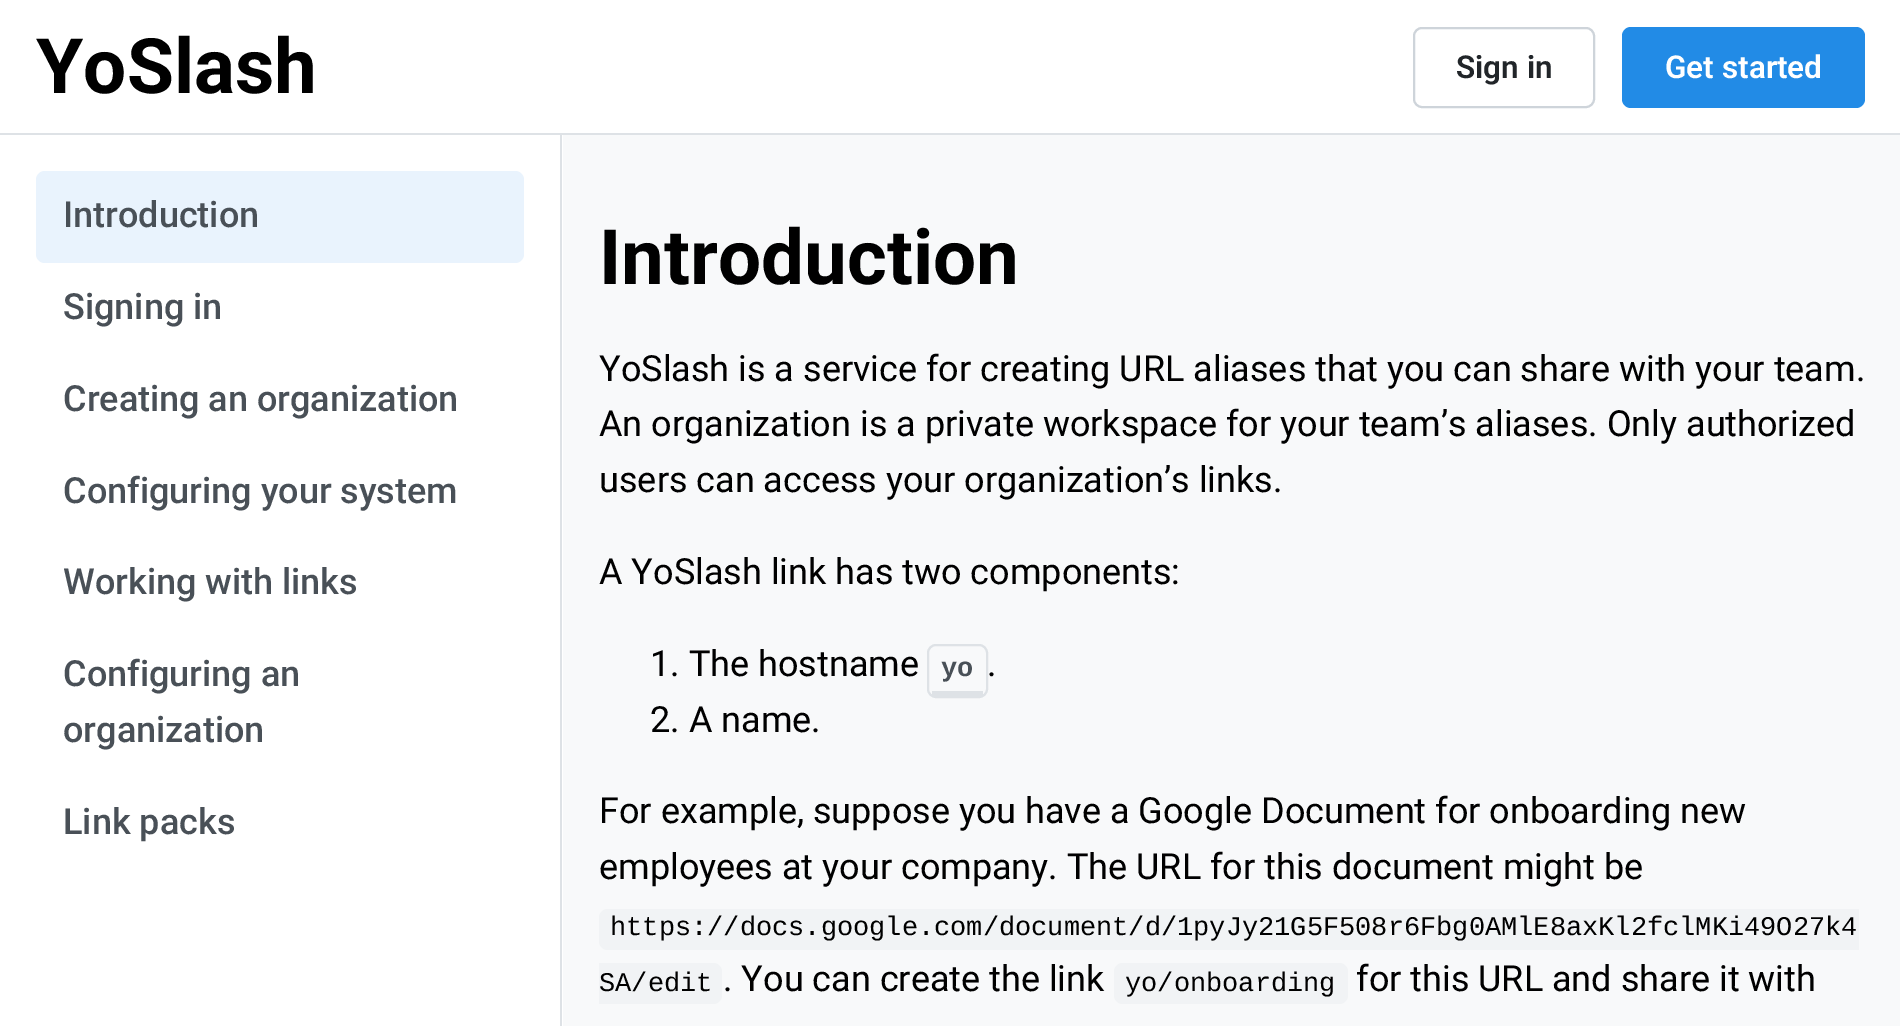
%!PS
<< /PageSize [1900 1026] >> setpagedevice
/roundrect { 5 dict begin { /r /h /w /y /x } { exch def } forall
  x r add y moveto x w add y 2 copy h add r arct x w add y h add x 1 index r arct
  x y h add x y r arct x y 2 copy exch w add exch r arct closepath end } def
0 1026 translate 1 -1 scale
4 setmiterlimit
0.973 0.976 0.98 setrgbcolor
0 0 1900 1026 rectfill
1 setgray
0 0 1900 133 rectfill
0.871 0.886 0.902 setrgbcolor
0 133 1900 2 rectfill
/Roboto-Bold [76.5 0 0 -76.5 0 0] selectfont
0 setgray
36 93 moveto (YoSlash) show
0.808 0.831 0.855 setrgbcolor
2 setlinewidth
1414 28 180 79 8 roundrect stroke
/Roboto-SemiBold [31.5 0 0 -31.5 0 0] selectfont
0.129 0.145 0.161 setrgbcolor
1456 78 moveto (Sign in) show
0.133 0.545 0.902 setrgbcolor
1622 27 243 81 9 roundrect fill
1 setgray
1665 78 moveto (Get started) show
0 135 563 891 rectfill
0.871 0.886 0.902 setrgbcolor
560 135 2 891 rectfill
0.914 0.953 0.992 setrgbcolor
36 171 488 92 9 roundrect fill
/Roboto-Medium [36 0 0 -36 0 0] selectfont
0.286 0.314 0.341 setrgbcolor
63 227 moveto (Introduction) show
63 319 moveto (Signing in) show
63 411 moveto (Creating an organization) show
63 503 moveto (Configuring your system) show
63 594 moveto (Working with links) show
63 686 moveto (Configuring an) show
63 742 moveto (organization) show
63 834 moveto (Link packs) show
/Roboto-Bold [76.5 0 0 -76.5 0 0] selectfont
0 setgray
599 284 moveto (Introduction) show
/Roboto-Regular [36 0 0 -36 0 0] selectfont
599 381 moveto (YoSlash is a service for creating URL aliases that you can share with your team.) show
599 436 moveto (An organization is a private workspace for your team’s aliases. Only authorized) show
599 492 moveto (users can access your organization’s links.) show
599 584 moveto (A YoSlash link has two components:) show
650 676 moveto (1. The hostname) show
0.871 0.886 0.902 setrgbcolor
928 645 59 52 8 roundrect stroke
/LiberationMono-Bold [27 0 0 -27 0 0] selectfont
0.286 0.314 0.341 setrgbcolor
941 676 moveto (yo) show
0.871 0.886 0.902 setrgbcolor
932 691 51 5 rectfill
/Roboto-Regular [36 0 0 -36 0 0] selectfont
0 setgray
987 676 moveto (.) show
650 732 moveto (2. A name.) show
599 823 moveto (For example, suppose you have a Google Document for onboarding new) show
599 879 moveto (employees at your company. The URL for this document might be) show
0.945 0.953 0.961 setrgbcolor
newpath 608 909 moveto 1859 909 lineto 1859 950 lineto 608 950 lineto 603 950 599 946 599 941 curveto 599 918 lineto 599 913 603 909 608 909 curveto closepath fill
/LiberationMono-Regular [27 0 0 -27 0 0] selectfont
0 setgray
610 935 moveto (https://docs.google.com/document/d/1pyJy21G5F508r6Fbg0AMlE8axKl2fclMKi49O27k4) show
0.945 0.953 0.961 setrgbcolor
newpath 599 963 moveto 713 963 lineto 718 963 722 967 722 972 curveto 722 995 lineto 722 1000 718 1004 713 1004 curveto 599 1004 lineto closepath fill
0 setgray
599 991 moveto (SA/edit) show
/Roboto-Regular [36 0 0 -36 0 0] selectfont
723 991 moveto (. You can create the link) show
0.945 0.953 0.961 setrgbcolor
1114 963 234 41 9 roundrect fill
/LiberationMono-Regular [27 0 0 -27 0 0] selectfont
0 setgray
1125 991 moveto (yo/onboarding) show
/Roboto-Regular [36 0 0 -36 0 0] selectfont
1356 991 moveto (for this URL and share it with) show
showpage
